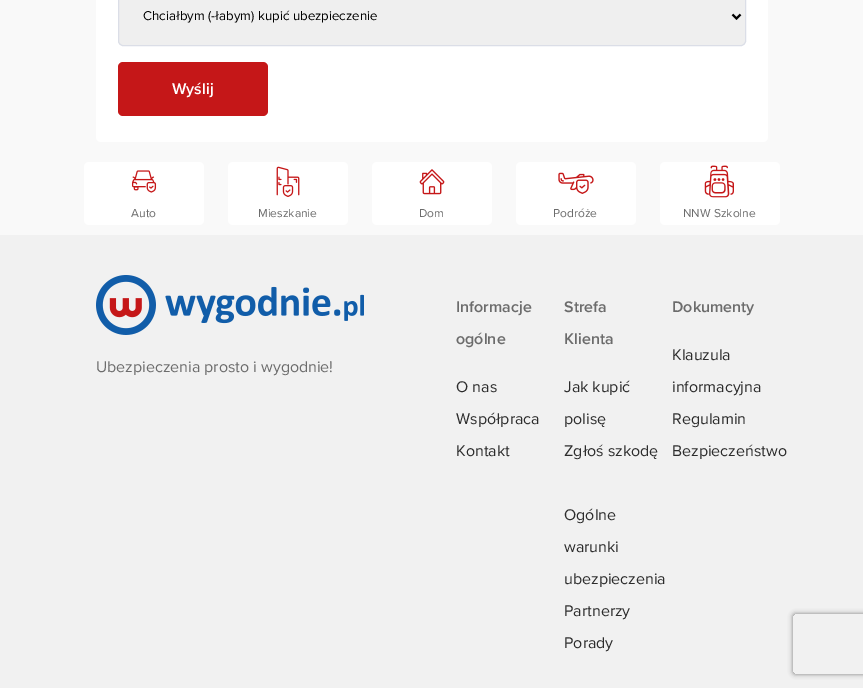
%!PS
<< /PageSize [863 688] /PageUsesTransparency true >> setpagedevice
/alpha { dup .setfillconstantalpha .setstrokeconstantalpha } def
/roundrect { 5 dict begin { /r /h /w /y /x } { exch def } forall
  x r add y moveto x w add y 2 copy h add r arct x w add y h add x 1 index r arct
  x y h add x y r arct x y 2 copy exch w add exch r arct closepath end } def
/shadow { 12 dict begin { /a /b /q /h /w /y /x } { exch def } forall gsave /was 0 def
  9 -2 -9 { dup b mul 4 div /e exch def 1 sub .425 mul 2.718 exch exp 1 add a .99 .min exch div /now exch def
    1 1 now sub 1 was sub div sub alpha /was now def
    w h .min e 2 mul add 0 gt { x e sub y e sub w e 2 mul add h e 2 mul add
      q e add b .6 mul add w h .min 2 div e add .min 0 .max roundrect fill } if } for grestore end } def
/picture { 5 dict begin { /h /w /y /x /name } { exch def } forall
  gsave x y translate w h scale
  w h 8 [w 0 0 h 0 0] name (r) file false 3 colorimage grestore end } def
0 .pushpdf14devicefilter
0 688 translate 1 -1 scale
4 setmiterlimit
0.976 setgray
0 0 863 688 rectfill
1 setgray
96 -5 672 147 5 roundrect fill
0.937 setgray
118.5 -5.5 627 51 4.5 roundrect gsave fill grestore
0.859 0.871 0.906 setrgbcolor
stroke
0 setgray
2 setlinewidth
newpath 732.5 14.5 moveto 736.5 18.5 lineto 740.5 14.5 lineto stroke
/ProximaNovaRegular-Regular [13.3 0 0 -13.3 0 0] selectfont
143 20 moveto (Chciałbym \(-łabym\) kupić ubezpieczenie) show
0.773 0.09 0.094 setrgbcolor
118 62 150 54 5 roundrect fill
/ProximaNova-SemiBold [16 0 0 -16 0 0] selectfont
1 setgray
172 94 moveto (Wyślij) show
0.945 setgray
0 235 863 453 rectfill
gsave
newpath 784 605 moveto 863 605 lineto 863 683 lineto 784 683 lineto closepath 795 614 moveto 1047 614 lineto 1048 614 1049 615 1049 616 curveto 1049 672 lineto 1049 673 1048 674 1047 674 curveto 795 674 lineto 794 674 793 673 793 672 curveto 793 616 lineto 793 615 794 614 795 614 curveto closepath eoclip newpath
0.502 setgray
793 614 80 60 2 2.5 1 shadow
grestore
1 setgray
84 162 120 63 5 roundrect fill
(img1.rgb) 131 170 26 23 picture
/ProximaNovaRegular-Regular [12 0 0 -12 0 0] selectfont
0.424 setgray
131 217 moveto (Auto) show
1 setgray
228 162 120 63 5 roundrect fill
(img2.rgb) 276 166 24 31 picture
0.424 setgray
258 217 moveto (Mieszkanie) show
1 setgray
372 162 120 63 5 roundrect fill
(img3.rgb) 419 169 26 26 picture
0.424 setgray
419 217 moveto (Dom) show
1 setgray
516 162 120 63 5 roundrect fill
(img4.rgb) 558 172 36 22 picture
0.424 setgray
553 217 moveto (Podróże) show
1 setgray
660 162 120 63 5 roundrect fill
(img5.rgb) 704 165 30 33 picture
0.424 setgray
683 217 moveto (NNW Szkolne) show
(img6.rgb) 96 275 268 60 picture
/ProximaNovaRegular-Regular [16 0 0 -16 0 0] selectfont
96 372 moveto (Ubezpieczenia prosto i wygodnie!) show
/ProximaNova-SemiBold [16 0 0 -16 0 0] selectfont
456 312 moveto (Informacje) show
456 344 moveto (ogólne) show
/ProximaNovaRegular-Regular [16 0 0 -16 0 0] selectfont
0.173 setgray
456 392 moveto (O nas) show
456 424 moveto (Współpraca) show
456 456 moveto (Kontakt) show
/ProximaNova-SemiBold [16 0 0 -16 0 0] selectfont
0.424 setgray
564 312 moveto (Strefa) show
564 344 moveto (Klienta) show
/ProximaNovaRegular-Regular [16 0 0 -16 0 0] selectfont
0.173 setgray
564 392 moveto (Jak kupić) show
564 424 moveto (polisę) show
564 456 moveto (Zgłoś szkodę) show
564 520 moveto (Ogólne) show
564 552 moveto (warunki) show
564 584 moveto (ubezpieczenia) show
564 616 moveto (Partnerzy) show
564 648 moveto (Porady) show
/ProximaNova-SemiBold [16 0 0 -16 0 0] selectfont
0.424 setgray
672 312 moveto (Dokumenty) show
/ProximaNovaRegular-Regular [16 0 0 -16 0 0] selectfont
0.173 setgray
672 360 moveto (Klauzula) show
672 392 moveto (informacyjna) show
672 424 moveto (Regulamin) show
672 456 moveto (Bezpieczeństwo) show
.poppdf14devicefilter showpage
